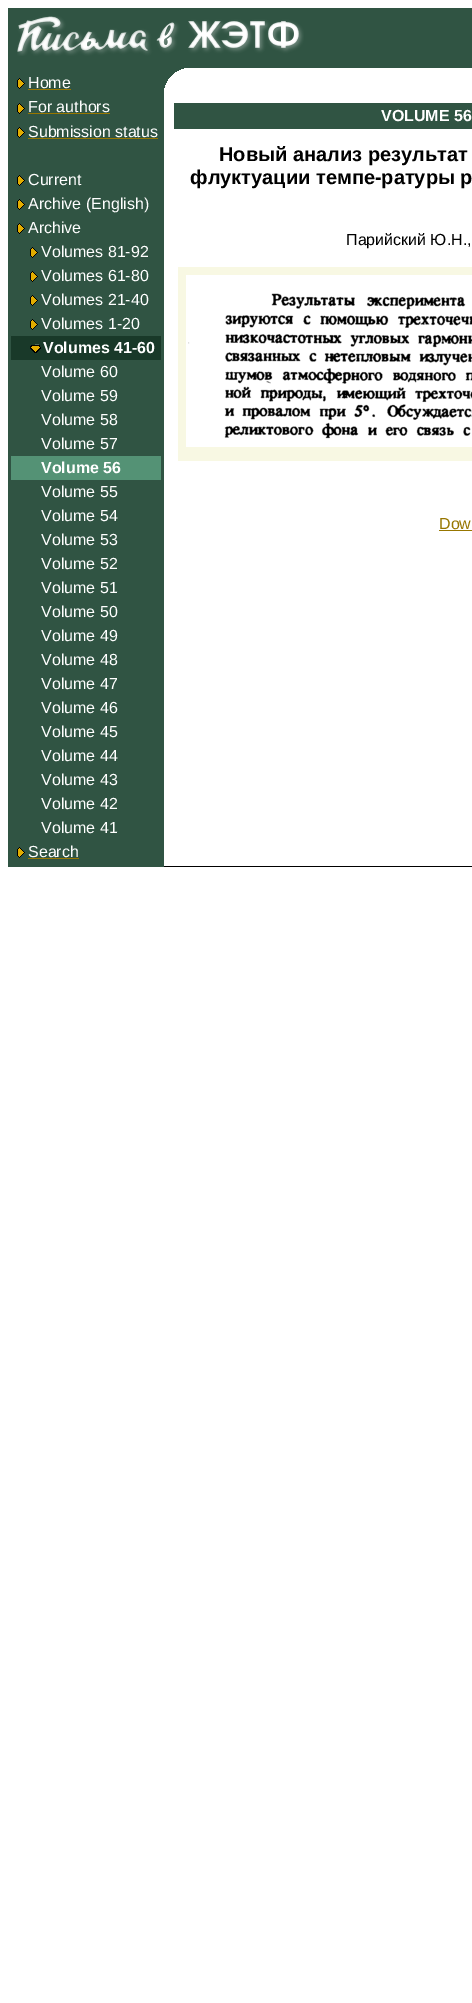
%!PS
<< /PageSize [472 2003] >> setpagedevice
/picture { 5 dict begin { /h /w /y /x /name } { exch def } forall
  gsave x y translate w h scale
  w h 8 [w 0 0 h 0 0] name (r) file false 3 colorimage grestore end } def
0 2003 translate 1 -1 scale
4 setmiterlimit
1 setgray
0 0 472 2003 rectfill
0.188 0.329 0.263 setrgbcolor
8 8 464 60 rectfill
(img1.rgb) 17 16 287 40 picture
8 68 156 799 rectfill
(img2.rgb) 17 78 8 11 picture
/LiberationSans-Regular [16 0 0 -16 0 0] selectfont
1 setgray
28 88 moveto (Home) show
0.592 0.463 0 setrgbcolor
28 89 43 1 rectfill
(img2.rgb) 17 103 8 11 picture
1 setgray
28 112 moveto (For authors) show
0.592 0.463 0 setrgbcolor
28 113 82 1 rectfill
(img2.rgb) 17 127 8 11 picture
1 setgray
28 137 moveto (Submission status) show
0.592 0.463 0 setrgbcolor
28 138 130 1 rectfill
(img2.rgb) 17 175 8 11 picture
1 setgray
28 185 moveto (Current) show
(img2.rgb) 17 199 8 11 picture
28 209 moveto (Archive \(English\)) show
(img2.rgb) 17 223 8 11 picture
28 233 moveto (Archive) show
(img2.rgb) 30 247 8 11 picture
41 257 moveto (Volumes 81-92) show
(img2.rgb) 30 271 8 11 picture
41 281 moveto (Volumes 61-80) show
(img2.rgb) 30 295 8 11 picture
41 305 moveto (Volumes 21-40) show
(img2.rgb) 30 319 8 11 picture
41 329 moveto (Volumes 1-20) show
0.098 0.224 0.161 setrgbcolor
11 336 150 24 rectfill
(img3.rgb) 30 344 11 9 picture
/LiberationSans-Bold [16 0 0 -16 0 0] selectfont
1 setgray
43 353 moveto (Volumes 41-60) show
/LiberationSans-Regular [16 0 0 -16 0 0] selectfont
41 377 moveto (Volume 60) show
41 401 moveto (Volume 59) show
41 425 moveto (Volume 58) show
41 449 moveto (Volume 57) show
0.329 0.573 0.459 setrgbcolor
11 456 150 24 rectfill
/LiberationSans-Bold [16 0 0 -16 0 0] selectfont
1 setgray
41 473 moveto (Volume 56) show
/LiberationSans-Regular [16 0 0 -16 0 0] selectfont
41 497 moveto (Volume 55) show
41 521 moveto (Volume 54) show
41 545 moveto (Volume 53) show
41 569 moveto (Volume 52) show
41 593 moveto (Volume 51) show
41 617 moveto (Volume 50) show
41 641 moveto (Volume 49) show
41 665 moveto (Volume 48) show
41 689 moveto (Volume 47) show
41 713 moveto (Volume 46) show
41 737 moveto (Volume 45) show
41 761 moveto (Volume 44) show
41 785 moveto (Volume 43) show
41 809 moveto (Volume 42) show
41 833 moveto (Volume 41) show
(img2.rgb) 17 847 8 11 picture
28 857 moveto (Search) show
0.592 0.463 0 setrgbcolor
28 858 51 1 rectfill
(img4.rgb) 164 68 20 20 picture
0 setgray
164 866 308 1 rectfill
0.188 0.329 0.263 setrgbcolor
174 103 298 26 rectfill
/LiberationSans-Bold [16 0 0 -16 0 0] selectfont
1 setgray
381 121 moveto (VOLUME 56) show
/LiberationSans-Bold [20 0 0 -20 0 0] selectfont
0 setgray
219 161 moveto (Новый анализ результат) show
190 184 moveto (флуктуации темпе-ратуры р) show
/LiberationSans-Regular [16 0 0 -16 0 0] selectfont
346 245 moveto (Парийский Ю.Н.,) show
0.973 0.973 0.89 setrgbcolor
178 267 294 194 rectfill
(img5.rgb) 186 275 286 172 picture
0.592 0.463 0 setrgbcolor
439 529 moveto (Dow) show
439 530 33 1 rectfill
showpage
